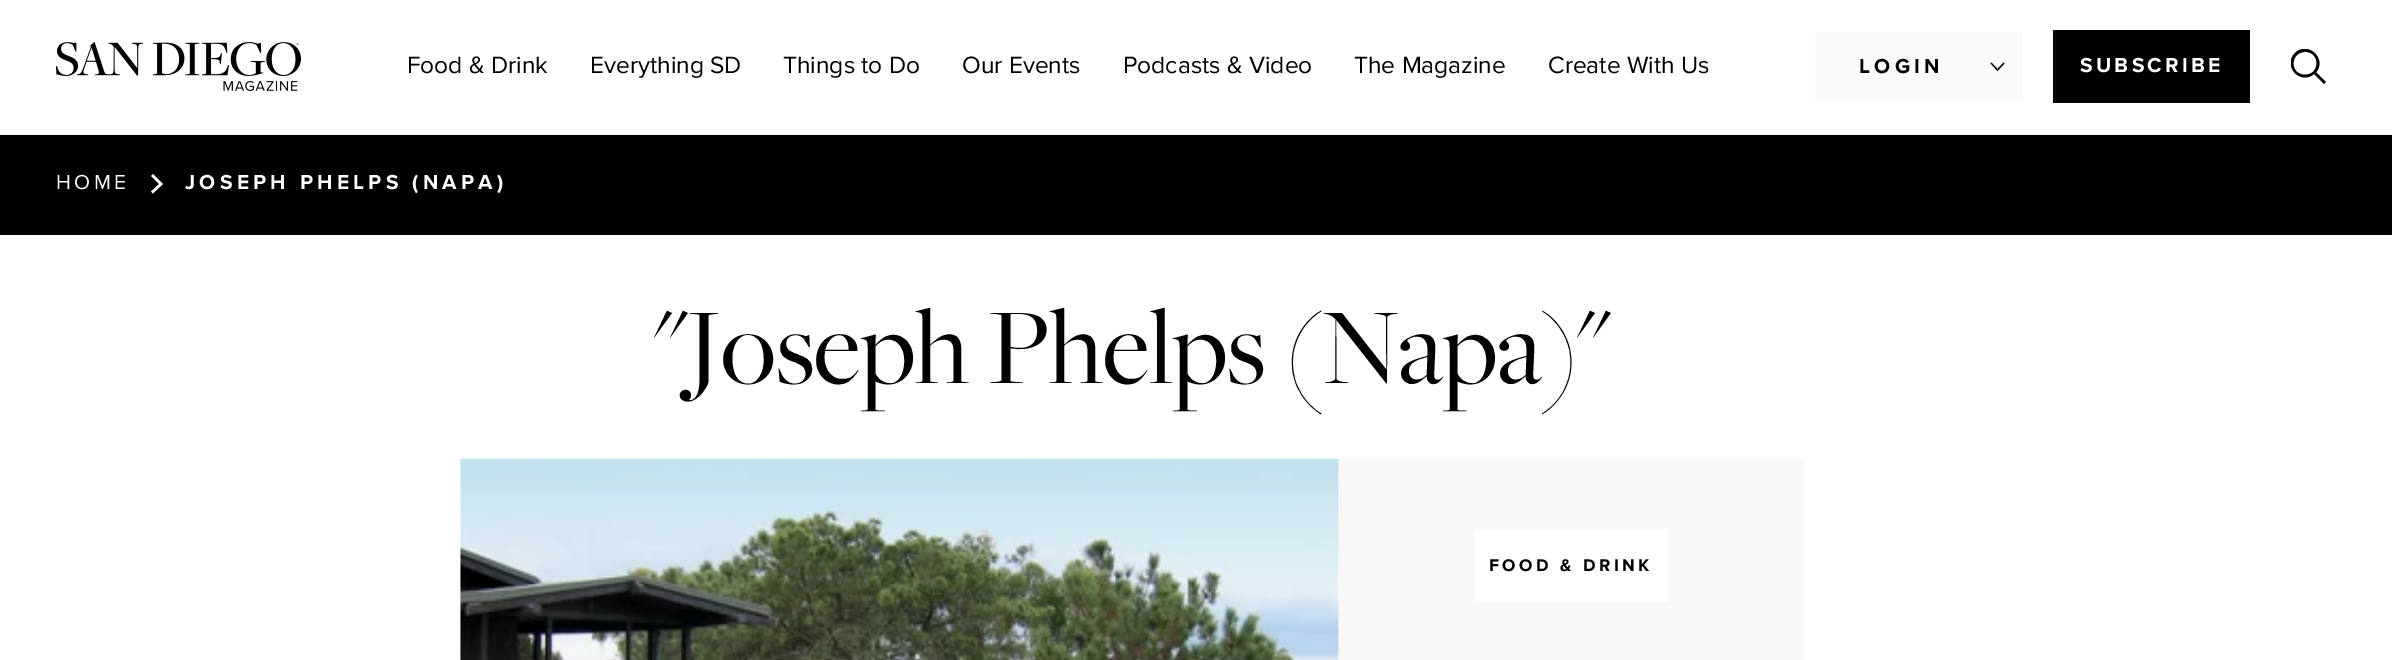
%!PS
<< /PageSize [2392 660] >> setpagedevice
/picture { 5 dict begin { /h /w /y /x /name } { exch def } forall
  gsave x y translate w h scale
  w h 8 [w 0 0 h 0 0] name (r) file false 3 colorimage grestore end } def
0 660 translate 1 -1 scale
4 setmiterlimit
1 setgray
0 0 2392 660 rectfill
0.973 setgray
0 133 2392 2 rectfill
(img1.rgb) 56 42 245 49 picture
/ProximaNova-Regular [24.5 0 0 -24.5 0 0] selectfont
0 setgray
407 73 moveto (Food & Drink) show
590 73 moveto (Everything SD) show
783 73 moveto (Things to Do) show
962 73 moveto (Our Events) show
1123 73 moveto (Podcasts & Video) show
1354 73 moveto (The Magazine) show
1548 73 moveto (Create With Us) show
0.98 setgray
1815 32 208 70 rectfill
/ProximaNova-Bold [21 0 0 -21 0 0] selectfont
0 setgray
1859 73 moveto 4.25 0 (LOGIN) ashow
1.3 setlinewidth
newpath 2004 63 moveto 1997.5 70 lineto 1991 63 lineto stroke
2053 30 197 73 rectfill
1 setgray
2080 72 moveto 3.25 0 (SUBSCRIBE) ashow
gsave
2291 49 35 35 rectclip
0 setgray
newpath 2326 82 moveto 2316 72.5 lineto 2327.5 58.5 2307.5 40.5 2295 53 curveto 2282 66 2300.5 85.5 2314 74 curveto 2324 84 lineto closepath 2293.5 63.5 moveto 2293.5 48 2317 48 2316.5 63.5 curveto 2316.5 78.5 2293.5 78.5 2293.5 63.5 curveto closepath fill
grestore
0 setgray
0 135 2392 100 rectfill
/ProximaNova-Regular [21 0 0 -21 0 0] selectfont
1 setgray
56 189 moveto 3.25 0 (HOME) ashow
2.6 setlinewidth
newpath 152 175 moveto 161 184 lineto 152 192.5 lineto stroke
/ProximaNova-Bold [21 0 0 -21 0 0] selectfont
185 189 moveto 4.25 0 (JOSEPH PHELPS \(NAPA\)) ashow
/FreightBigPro-Regular [112 0 0 -112 0 0] selectfont
0 setgray
654 383 moveto ("Joseph Phelps \(Napa\)") show
(img2.rgb) 460 458 879 202 picture
0.973 setgray
1339 459 465 201 rectfill
1 setgray
1475 529 193 73 rectfill
/ProximaNova-Bold [17.5 0 0 -17.5 0 0] selectfont
0 setgray
1489 571 moveto 3.5 0 (FOOD & DRINK) ashow
showpage
